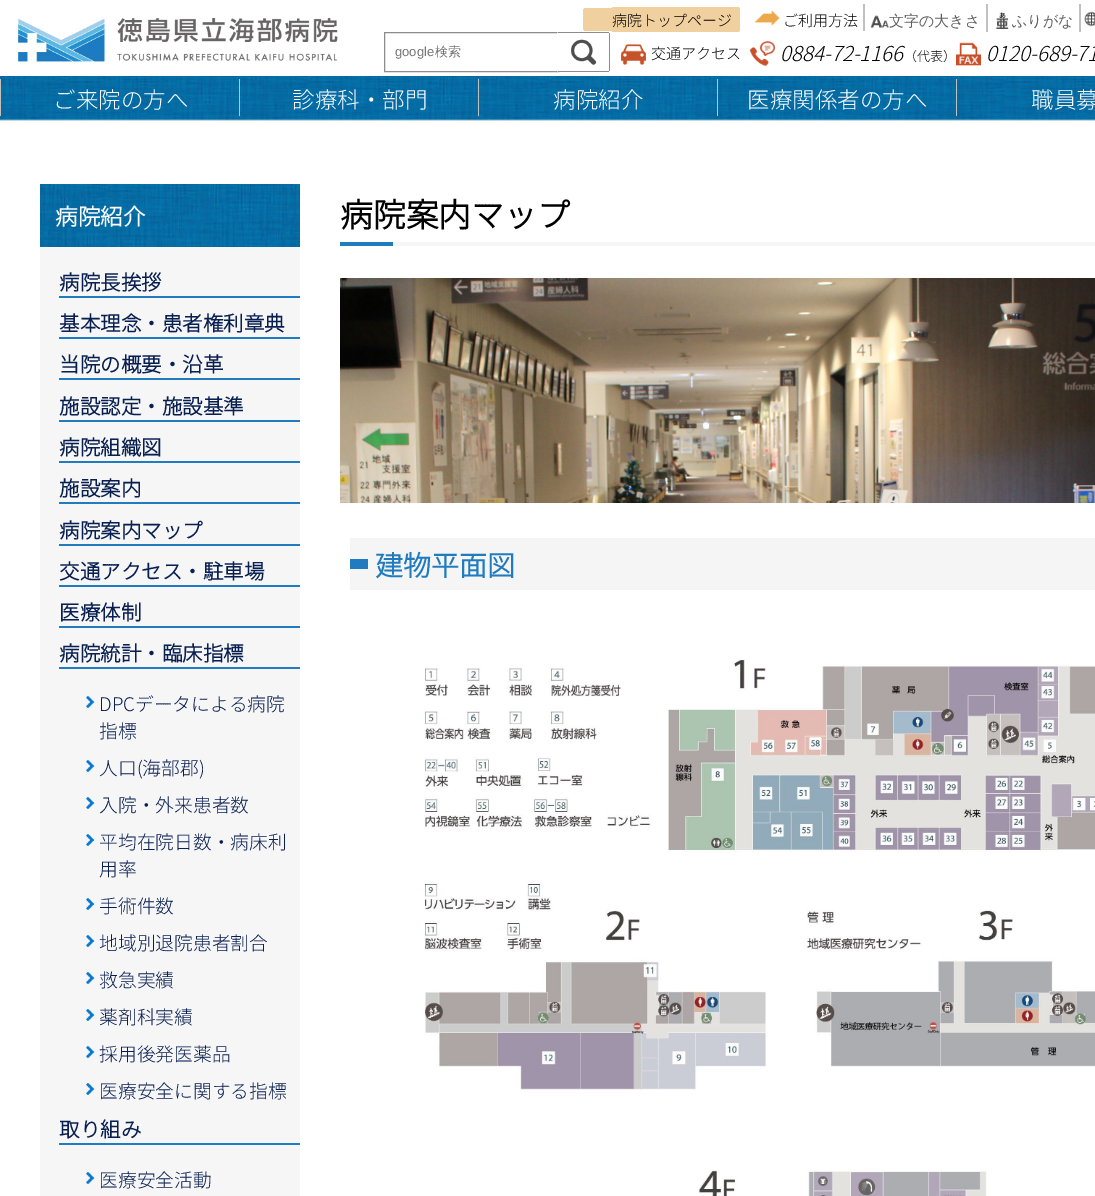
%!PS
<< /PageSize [1095 1196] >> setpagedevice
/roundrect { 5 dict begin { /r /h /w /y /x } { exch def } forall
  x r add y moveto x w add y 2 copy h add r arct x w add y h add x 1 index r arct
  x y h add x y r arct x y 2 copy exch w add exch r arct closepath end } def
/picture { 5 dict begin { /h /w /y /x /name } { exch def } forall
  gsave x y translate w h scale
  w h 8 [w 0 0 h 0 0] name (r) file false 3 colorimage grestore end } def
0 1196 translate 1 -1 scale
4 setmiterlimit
1 setgray
0 0 1095 1196 rectfill
(img1.rgb) 17 18 321 44 picture
0.945 0.816 0.627 setrgbcolor
newpath 612 7 moveto 737 7 lineto 738.5 7 740 8.5 740 10 curveto 740 29 lineto 740 30.5 738.5 32 737 32 curveto 612 32 lineto closepath fill
newpath 612 7 moveto 737 7 lineto 739 7 740 8 740 10 curveto 740 29 lineto 740 31 739 32 737 32 curveto 612 32 lineto closepath 612 9 moveto 737 9 lineto 738 9 738 9 738 10 curveto 738 29 lineto 738 30 738 30 737 30 curveto 612 30 lineto closepath eofill
/NotoSansJP-Thin [15 0 0 -15 0 0] selectfont
0 setgray
612 26 moveto (病院トップページ) show
0.945 0.816 0.627 setrgbcolor
newpath 586 8 moveto 612 8 lineto 612 31 lineto 586 31 lineto 584.5 31 583 29.5 583 28 curveto 583 11 lineto 583 9.5 584.5 8 586 8 curveto closepath fill
newpath 586 8 moveto 612 8 lineto 612 31 lineto 586 31 lineto 584.5 31 583 29.5 583 28 curveto 583 11 lineto 583 9.5 584.5 8 586 8 curveto closepath 586 10 moveto 612 10 lineto 612 29 lineto 586 29 lineto 585.5 29 585 28.5 585 28 curveto 585 11 lineto 585 10.5 585.5 10 586 10 curveto closepath eofill
0.753 setgray
863 4 2 27 rectfill
(img2.rgb) 754 10 26 16 picture
0 setgray
783 26 moveto (ご利用方法) show
0.753 setgray
986 4 2 28 rectfill
(img3.rgb) 870 15 19 13 picture
/WenQuanYiZenHei-Medium [15 0 0 -15 0 0] selectfont
0.376 setgray
889 26 moveto (文字の大きさ) show
0.753 setgray
1079 4 2 28 rectfill
(img4.rgb) 996 12 13 17 picture
0.376 setgray
1012 26 moveto (ふりがな) show
(img5.rgb) 1084 11 11 16 picture
0.549 setgray
384.5 32.5 174 39 rectstroke
/LiberationSans-Regular [13 0 0 -13 0 0] selectfont
0.459 setgray
395 56 moveto (google) show
/WenQuanYiZenHei-Medium [13 0 0 -13 0 0] selectfont
435 56 moveto (検索) show
1 setgray
557 32 53 40 2 roundrect fill
(img6.rgb) 571 39 26 26 picture
0.549 setgray
558 32 51 1 rectfill
609 33 1 38 rectfill
558 71 51 1 rectfill
(img7.rgb) 621 44 25 21 picture
/NotoSansJP-Thin [15 0 0 -15 0 0] selectfont
0 setgray
651 59 moveto (交通アクセス) show
(img8.rgb) 750 41 25 25 picture
/NotoSansJP-ThinItalic [20.5 0 0 -20.5 0 0] selectfont
780 61 moveto (0884-72-1166) show
/NotoSansJP-Thin [13 0 0 -13 0 0] selectfont
904 61 moveto (（代表）) show
(img9.rgb) 956 42 25 24 picture
/NotoSansJP-ThinItalic [20.5 0 0 -20.5 0 0] selectfont
986 61 moveto (0120-689-71) show
(img10.rgb) 0 76 1095 45 picture
0.757 setgray
0 79 1 37 rectfill
/NotoSansJP-Thin [22.5 0 0 -22.5 0 0] selectfont
1 setgray
53 108 moveto (ご来院の方へ) show
0.757 setgray
239 79 1 37 rectfill
1 setgray
292 108 moveto (診療科・部門) show
0.757 setgray
478 79 1 37 rectfill
1 setgray
553 108 moveto (病院紹介) show
0.757 setgray
717 79 1 37 rectfill
1 setgray
747 108 moveto (医療関係者の方へ) show
0.757 setgray
956 79 1 37 rectfill
1 setgray
1031 108 moveto (職員募) show
(img11.rgb) 40 184 260 63 picture
/NotoSansJP-Bold [22.5 0 0 -22.5 0 0] selectfont
55 225 moveto (病院紹介) show
0.965 setgray
40 247 260 949 rectfill
0.125 0.482 0.749 setrgbcolor
59 296 241 2 rectfill
/NotoSansJP-Bold [20.5 0 0 -20.5 0 0] selectfont
0.031 0.122 0.318 setrgbcolor
59 290 moveto (病院長挨拶) show
0.125 0.482 0.749 setrgbcolor
59 337 241 2 rectfill
0.031 0.122 0.318 setrgbcolor
59 331 moveto (基本理念・患者権利章典) show
0.125 0.482 0.749 setrgbcolor
59 378 241 2 rectfill
0.031 0.122 0.318 setrgbcolor
59 372 moveto (当院の概要・沿革) show
0.125 0.482 0.749 setrgbcolor
59 420 241 2 rectfill
0.031 0.122 0.318 setrgbcolor
59 414 moveto (施設認定・施設基準) show
0.125 0.482 0.749 setrgbcolor
59 461 241 2 rectfill
0.031 0.122 0.318 setrgbcolor
59 455 moveto (病院組織図) show
0.125 0.482 0.749 setrgbcolor
59 502 241 2 rectfill
0.031 0.122 0.318 setrgbcolor
59 496 moveto (施設案内) show
0.125 0.482 0.749 setrgbcolor
59 544 241 2 rectfill
0.031 0.122 0.318 setrgbcolor
59 538 moveto (病院案内マップ) show
0.125 0.482 0.749 setrgbcolor
59 585 241 2 rectfill
0.031 0.122 0.318 setrgbcolor
59 579 moveto (交通アクセス・駐車場) show
0.125 0.482 0.749 setrgbcolor
59 626 241 2 rectfill
0.031 0.122 0.318 setrgbcolor
59 620 moveto (医療体制) show
0.125 0.482 0.749 setrgbcolor
59 667 241 2 rectfill
0.031 0.122 0.318 setrgbcolor
59 661 moveto (病院統計・臨床指標) show
(img12.rgb) 86 696 9 12 picture
/NotoSansJP-Thin [18.75 0 0 -18.75 0 0] selectfont
99 711 moveto (DPCデータによる病院) show
99 738 moveto (指標) show
(img12.rgb) 86 760 9 12 picture
99 775 moveto (人口\(海部郡\)) show
(img12.rgb) 86 797 9 12 picture
99 812 moveto (入院・外来患者数) show
(img12.rgb) 86 834 9 12 picture
99 849 moveto (平均在院日数・病床利) show
99 876 moveto (用率) show
(img12.rgb) 86 898 9 12 picture
99 913 moveto (手術件数) show
(img12.rgb) 86 935 9 12 picture
99 950 moveto (地域別退院患者割合) show
(img12.rgb) 86 972 9 12 picture
99 987 moveto (救急実績) show
(img12.rgb) 86 1009 9 12 picture
99 1024 moveto (薬剤科実績) show
(img12.rgb) 86 1046 9 12 picture
99 1061 moveto (採用後発医薬品) show
(img12.rgb) 86 1083 9 12 picture
99 1098 moveto (医療安全に関する指標) show
0.125 0.482 0.749 setrgbcolor
59 1143 241 2 rectfill
/NotoSansJP-Bold [20.5 0 0 -20.5 0 0] selectfont
0.031 0.122 0.318 setrgbcolor
59 1137 moveto (取り組み) show
(img12.rgb) 86 1172 9 12 picture
/NotoSansJP-Thin [18.75 0 0 -18.75 0 0] selectfont
99 1187 moveto (医療安全活動) show
0.965 setgray
393 242 702 4 rectfill
/NotoSansJP-Bold [32.75 0 0 -32.75 0 0] selectfont
0 setgray
340 227 moveto (病院案内マップ) show
0.125 0.482 0.749 setrgbcolor
340 242 53 4 rectfill
(img13.rgb) 340 278 755 225 picture
0.961 setgray
350 538 745 52 rectfill
0.125 0.482 0.749 setrgbcolor
350 559 18 10 rectfill
/NotoSansJP-Bold [28 0 0 -28 0 0] selectfont
375 576 moveto (建物平面図) show
(img14.rgb) 424 658 671 432 picture
(img15.rgb) 699 1169 288 27 picture
showpage
